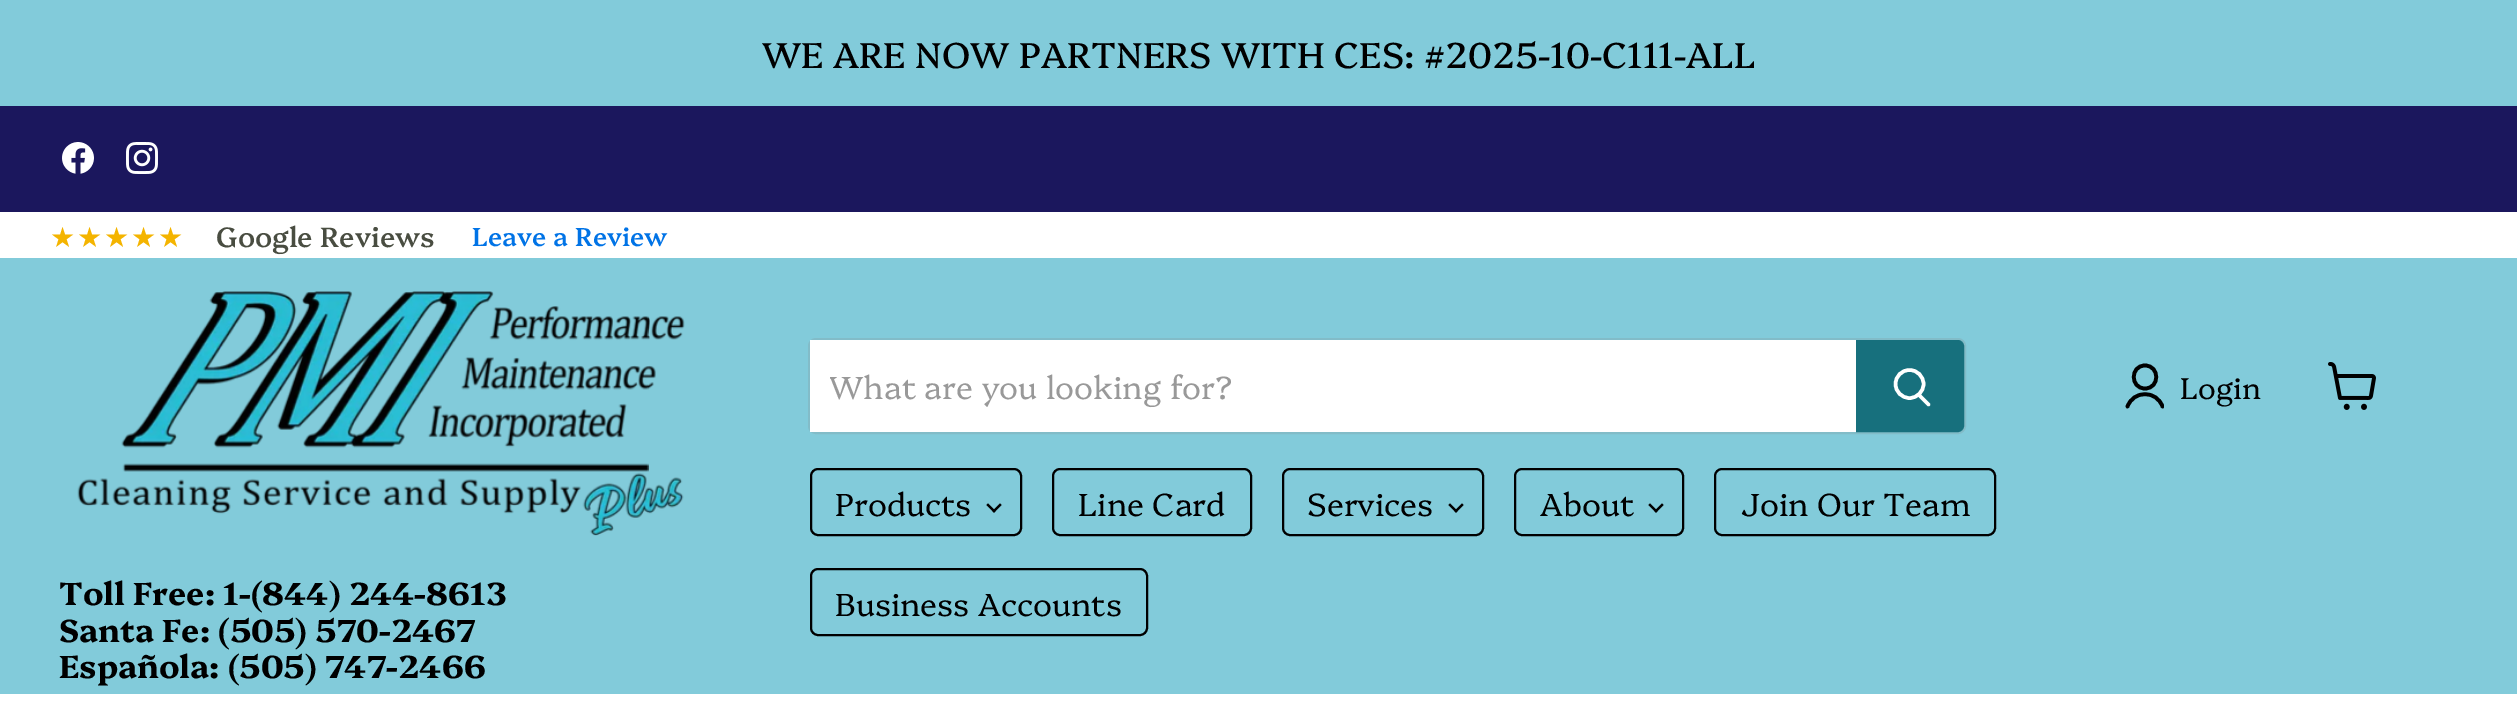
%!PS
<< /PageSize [2517 704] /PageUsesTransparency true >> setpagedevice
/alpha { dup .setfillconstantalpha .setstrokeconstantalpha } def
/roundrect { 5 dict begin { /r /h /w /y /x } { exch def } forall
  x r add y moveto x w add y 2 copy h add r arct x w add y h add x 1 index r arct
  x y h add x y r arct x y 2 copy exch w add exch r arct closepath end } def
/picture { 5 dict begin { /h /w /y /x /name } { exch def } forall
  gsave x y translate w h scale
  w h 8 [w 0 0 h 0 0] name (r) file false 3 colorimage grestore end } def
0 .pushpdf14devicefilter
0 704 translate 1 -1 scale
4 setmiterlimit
1 setgray
0 0 2517 704 rectfill
0.51 0.796 0.855 setrgbcolor
0 0 2517 106 rectfill
/Platypi-Regular [36 0 0 -36 0 0] selectfont
0 setgray
762 68 moveto (WE ARE NOW PARTNERS WITH CES: #2025-10-C111-ALL) show
0.106 0.09 0.365 setrgbcolor
0 106 2517 106 rectfill
(img1.rgb) 62 142 32 32 picture
(img2.rgb) 126 142 32 32 picture
/DejaVuSans-Regular [28 0 0 -28 0 0] selectfont
0.957 0.706 0 setrgbcolor
50 247 moveto 2 0 (★★★★★) ashow
/Platypi-Medium [28 0 0 -28 0 0] selectfont
0.286 0.302 0.255 setrgbcolor
216 247 moveto (Google Reviews) show
/Platypi-Medium [26 0 0 -26 0 0] selectfont
0 0.451 0.902 setrgbcolor
472 246 moveto (Leave a Review) show
0.51 0.796 0.855 setrgbcolor
0 258 2517 436 rectfill
0.2 alpha
0.502 setgray
2 setlinewidth
809 339 1156 94 7 roundrect stroke
1 alpha
1 setgray
810 340 1046 92 rectfill
gsave
830 364 1006 44 rectclip
/Platypi-Light [32 0 0 -32 0 0] selectfont
0.6 setgray
829 399 moveto (What are you looking for?) show
grestore
0.09 0.439 0.49 setrgbcolor
newpath 1858 342 moveto 1958 342 lineto 1960 342 1962 344 1962 346 curveto 1962 426 lineto 1962 428 1960 430 1958 430 curveto 1858 430 lineto closepath gsave fill grestore
4 setlinewidth
stroke
1 setgray
3.5 setlinewidth
1 setlinecap
newpath 1928.5 404.5 moveto 1919 395 lineto stroke
0 setlinecap
newpath 1909.5 384 14 0 360 arc closepath stroke
0 setgray
3.7 setlinewidth
1 setlinecap
1 setlinejoin
newpath 2145 388.5 moveto 2160 388.5 2160 365.5 2145 365.5 curveto 2130 365.5 2130 388.5 2145 388.5 curveto closepath stroke
gsave
2124 362 40 48 rectclip
newpath 2162.5 406.5 moveto 2156.5 390 2133.5 390 2127.5 406.5 curveto stroke
grestore
/Platypi-Light [30 0 0 -30 0 0] selectfont
2180 399 moveto (Login) show
(img3.rgb) 2328 362 48 48 picture
2 setlinewidth
0 setlinecap
0 setlinejoin
811 469 210 66 7 roundrect stroke
/Platypi-Light [32 0 0 -32 0 0] selectfont
835 516 moveto (Products) show
(img4.rgb) 986 503 16 10 picture
1053 469 198 66 7 roundrect stroke
1078 516 moveto (Line Card) show
1283 469 200 66 7 roundrect stroke
1307 516 moveto (Services) show
(img4.rgb) 1448 503 16 10 picture
1515 469 168 66 7 roundrect stroke
1540 516 moveto (About) show
(img4.rgb) 1648 503 16 10 picture
1715 469 280 66 7 roundrect stroke
1741 516 moveto (Join Our Team) show
811 569 336 66 7 roundrect stroke
835 616 moveto (Business Accounts) show
(img5.rgb) 77 291 608 245 picture
/Platypi-Bold [32 0 0 -32 0 0] selectfont
59 605 moveto (Toll Free: 1-\(844\) 244-8613) show
59 642 moveto (Santa Fe: \(505\) 570-2467) show
59 678 moveto (Española: \(505\) 747-2466) show
.poppdf14devicefilter showpage
